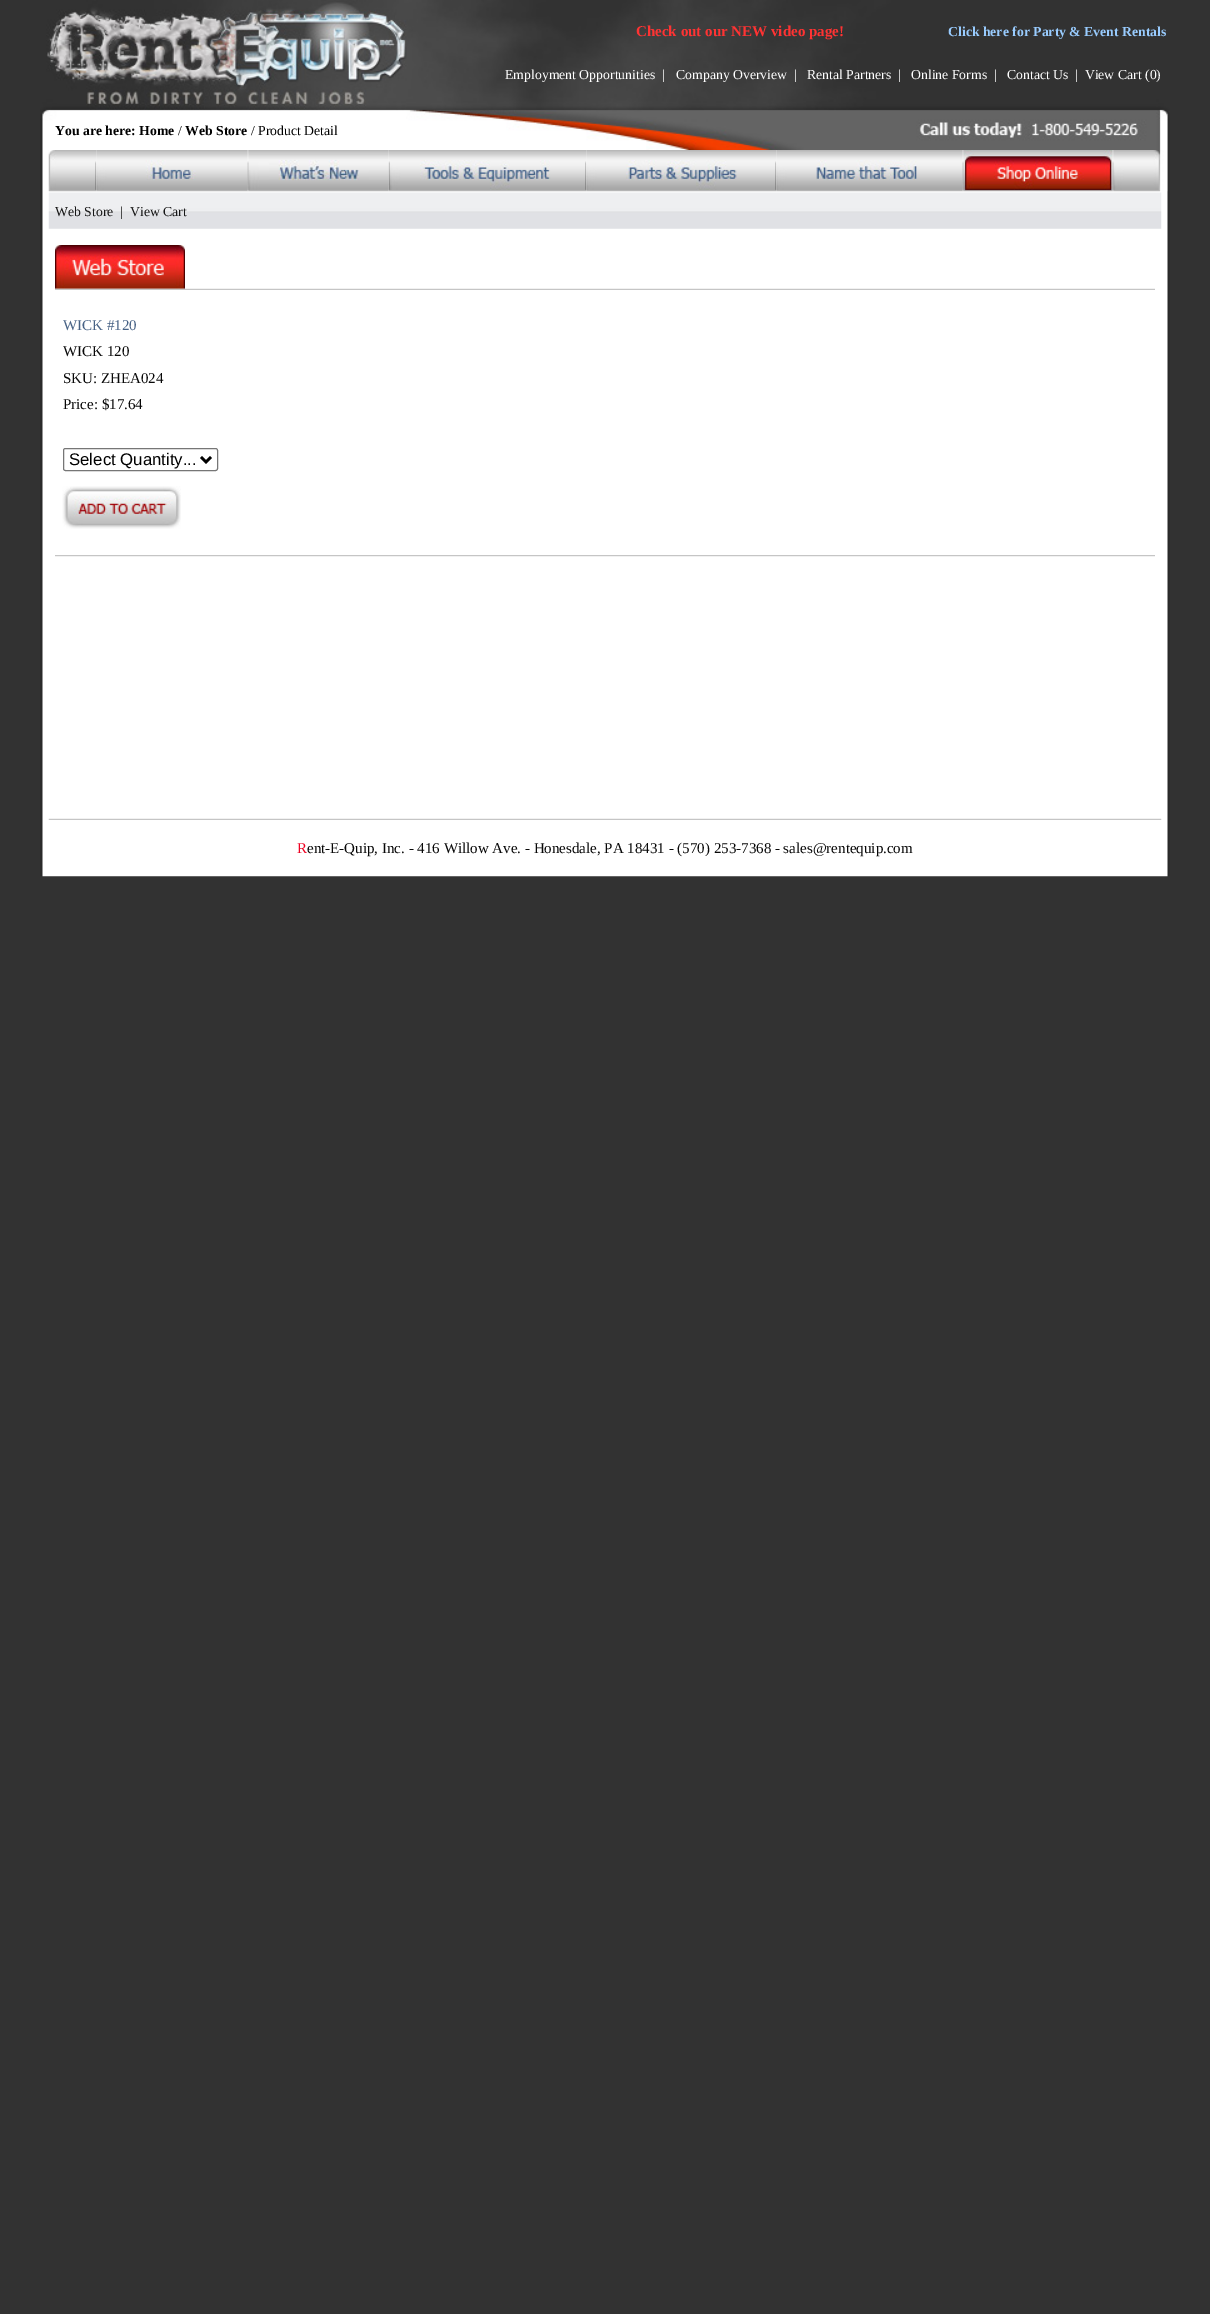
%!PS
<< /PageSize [1210 2314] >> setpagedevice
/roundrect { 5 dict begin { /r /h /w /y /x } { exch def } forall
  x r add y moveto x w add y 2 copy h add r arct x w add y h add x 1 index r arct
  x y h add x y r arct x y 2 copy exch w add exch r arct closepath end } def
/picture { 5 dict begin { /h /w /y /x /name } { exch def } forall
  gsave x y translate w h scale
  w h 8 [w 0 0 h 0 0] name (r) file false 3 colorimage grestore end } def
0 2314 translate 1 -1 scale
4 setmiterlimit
0.196 setgray
0 0 1210 2314 rectfill
(img1.rgb) 40 150 1130 727 picture
(img2.rgb) 40 0 1130 150 picture
/LiberationSerif-Bold [15 0 0 -15 0 0] selectfont
1 0.2 0.2 setrgbcolor
636 36 moveto (Check out our NEW video page!) show
/LiberationSerif-Bold [13.75 0 0 -13.75 0 0] selectfont
0.6 0.8 1 setrgbcolor
948 36 moveto (Click here for Party & Event Rentals) show
/LiberationSerif-Regular [13.75 0 0 -13.75 0 0] selectfont
1 setgray
505 79 moveto (Employment Opportunities) show
662 79 moveto (|) show
676 79 moveto (Company Overview) show
794 79 moveto (|) show
807 79 moveto (Rental Partners) show
898 79 moveto (|) show
911 79 moveto (Online Forms) show
994 79 moveto (|) show
1007 79 moveto (Contact Us) show
1075 79 moveto (|  View Cart \(0\)) show
/LiberationSerif-Bold [13.75 0 0 -13.75 0 0] selectfont
0.004 setgray
55 135 moveto (You are here: Home) show
/LiberationSerif-Regular [13.75 0 0 -13.75 0 0] selectfont
178 135 moveto (/) show
/LiberationSerif-Bold [13.75 0 0 -13.75 0 0] selectfont
185 135 moveto (Web Store) show
/LiberationSerif-Regular [13.75 0 0 -13.75 0 0] selectfont
251 135 moveto (/ Product Detail) show
(img3.rgb) 48 150 47 42 picture
(img4.rgb) 95 150 2 42 picture
(img5.rgb) 96 150 152 42 picture
(img6.rgb) 247 150 2 42 picture
(img7.rgb) 248 150 141 42 picture
(img8.rgb) 388 150 2 42 picture
(img9.rgb) 390 150 195 42 picture
(img4.rgb) 585 150 2 42 picture
(img10.rgb) 586 150 189 42 picture
(img4.rgb) 775 150 2 42 picture
(img11.rgb) 776 150 187 42 picture
(img6.rgb) 962 150 2 42 picture
(img12.rgb) 963 150 150 42 picture
(img13.rgb) 1112 150 2 42 picture
(img14.rgb) 1113 150 55 42 picture
(img15.rgb) 48 192 1114 37 picture
0.086 setgray
55 216 moveto (Web Store) show
120 216 moveto (|) show
130 216 moveto (View Cart) show
(img16.rgb) 55 245 130 44 picture
(img17.rgb) 55 288 1100 2 picture
/LiberationSerif-Regular [15 0 0 -15 0 0] selectfont
0.278 0.384 0.522 setrgbcolor
63 330 moveto (WICK #120) show
0.031 setgray
63 356 moveto (WICK 120) show
63 383 moveto (SKU: ZHEA024) show
63 409 moveto (Price: $17.64) show
0.463 setgray
63.5 448.5 154 22 2 roundrect stroke
0 setgray
2.5 setlinewidth
newpath 201 457 moveto 206 462 lineto 211 457 lineto stroke
/LiberationSans-Regular [16.75 0 0 -16.75 0 0] selectfont
0.004 setgray
69 465 moveto (Select Quantity...) show
(img18.rgb) 62 486 119 43 picture
(img19.rgb) 55 555 1100 2 picture
(img20.rgb) 48 818 1114 2 picture
/LiberationSerif-Regular [15 0 0 -15 0 0] selectfont
0.933 0 0.129 setrgbcolor
297 853 moveto (R) show
0.031 setgray
307 853 moveto (ent-E-Quip, Inc. - 416 Willow Ave. - Honesdale, PA 18431 - \(570\) 253-7368 - sales@rentequip.com) show
showpage
